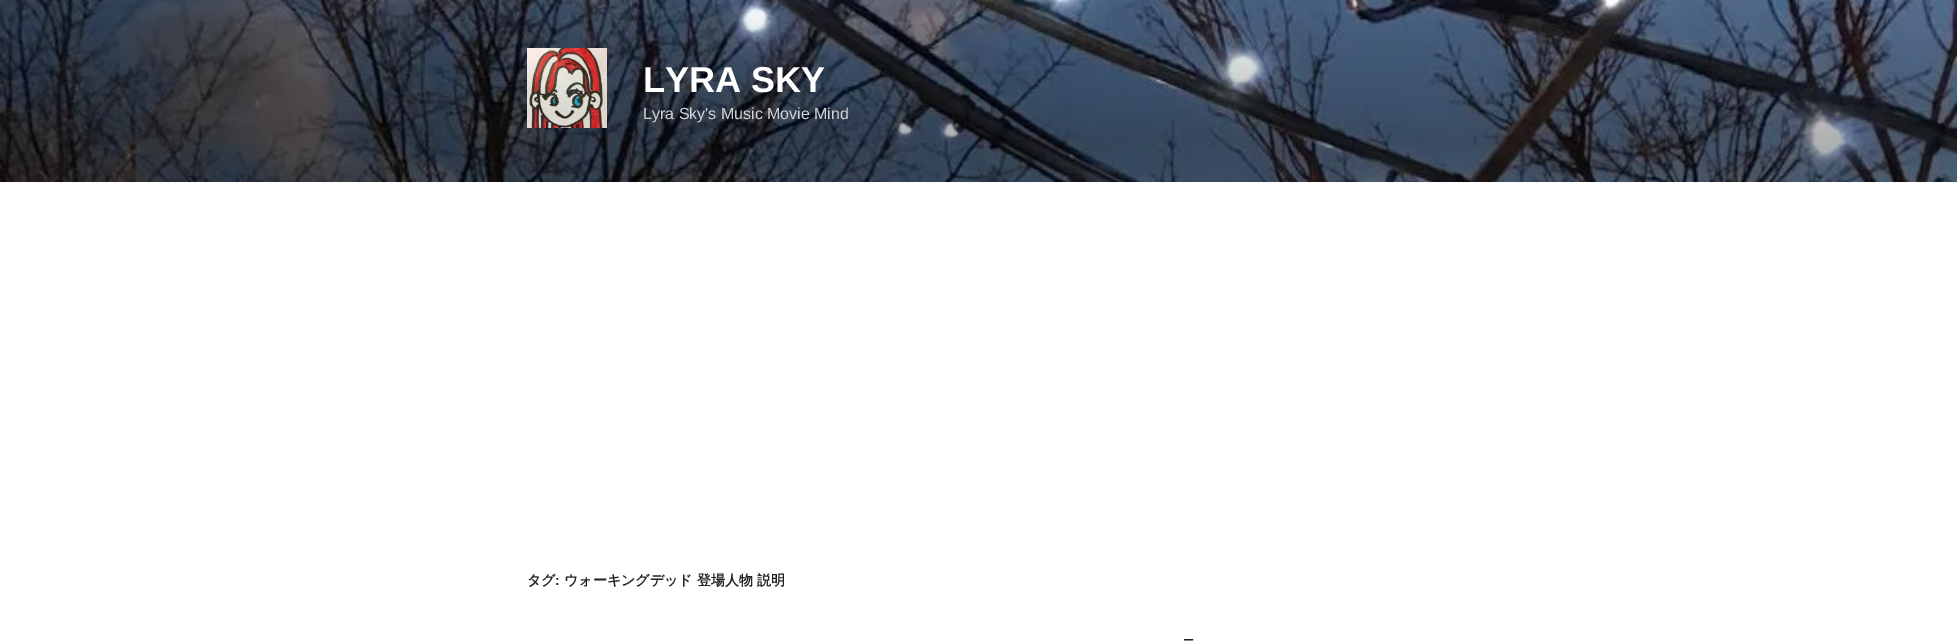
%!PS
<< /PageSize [1957 641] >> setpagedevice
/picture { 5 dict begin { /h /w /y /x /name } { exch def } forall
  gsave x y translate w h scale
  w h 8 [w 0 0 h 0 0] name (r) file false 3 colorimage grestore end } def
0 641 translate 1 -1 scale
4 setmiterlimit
1 setgray
0 0 1957 641 rectfill
0.98 setgray
0 182 1957 1 rectfill
(img1.rgb) 0 0 1957 182 picture
(img2.rgb) 527 48 80 80 picture
/LiberationSans-Bold [36 0 0 -36 0 0] selectfont
1 setgray
643 92 moveto (LYRA SKY) show
/LiberationSans-Regular [16 0 0 -16 0 0] selectfont
0.831 0.835 0.847 setrgbcolor
643 119 moveto (Lyra Sky's Music Movie Mind) show
/WenQuanYiZenHei-Bold [14 0 0 -14 0 0] selectfont
0.133 setgray
527 585 moveto (タグ) show
/LiberationSans-Bold [14 0 0 -14 0 0] selectfont
555 585 moveto (:) show
/WenQuanYiZenHei-Bold [14 0 0 -14 0 0] selectfont
564 585 moveto (ウォーキングデッド 登場人物 説明) show
/WenQuanYiZenHei-Bold [11 0 0 -11 0 0] selectfont
1183 644 moveto (ー) show
showpage
